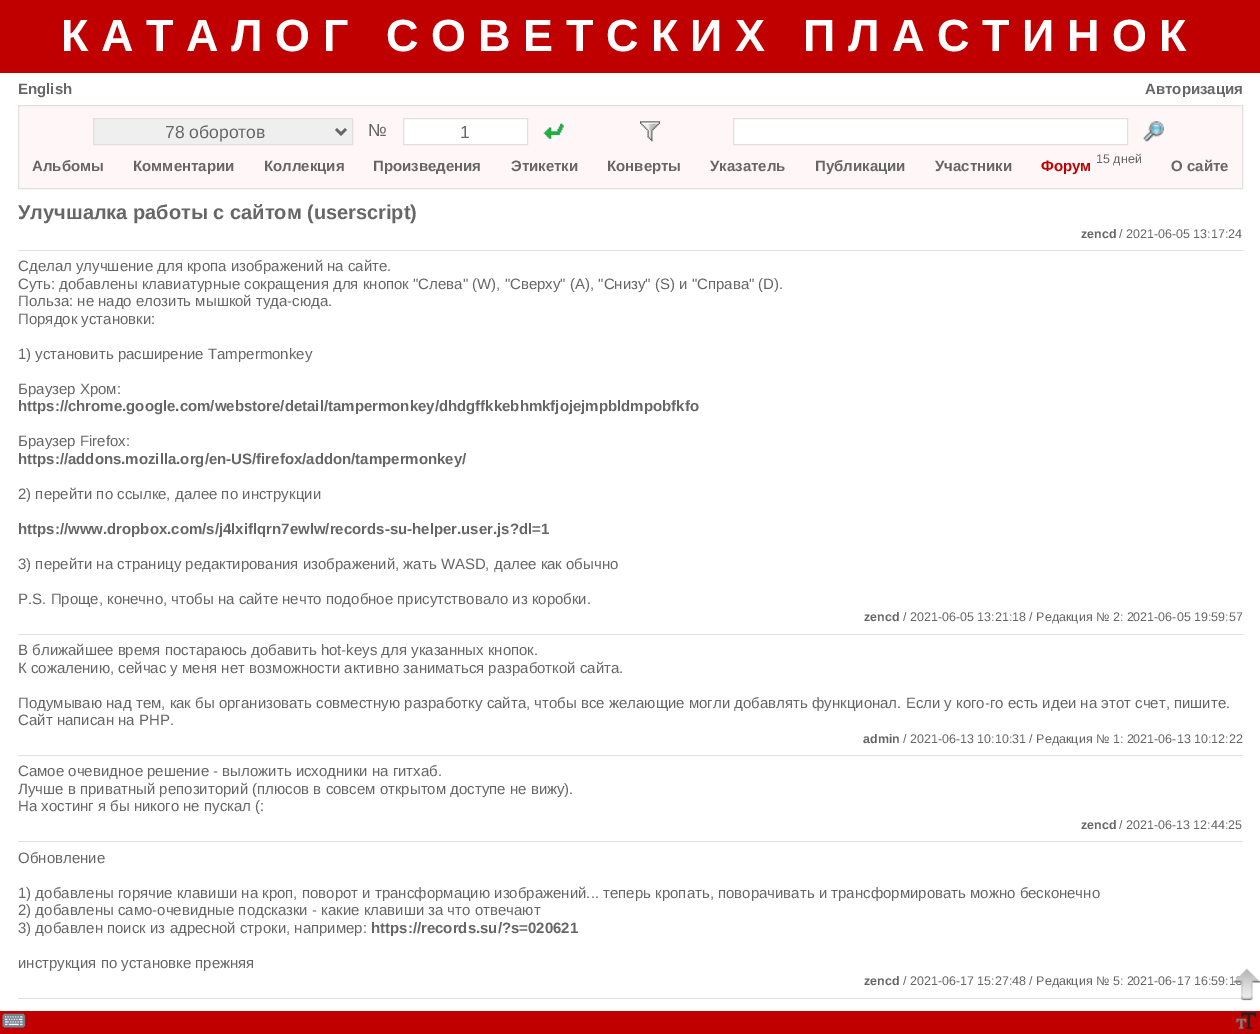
%!PS
<< /PageSize [1260 1034] >> setpagedevice
/picture { 5 dict begin { /h /w /y /x /name } { exch def } forall
  gsave x y translate w h scale
  w h 8 [w 0 0 h 0 0] name (r) file false 3 colorimage grestore end } def
0 1034 translate 1 -1 scale
4 setmiterlimit
1 setgray
0 0 1260 1034 rectfill
0.753 0 0 setrgbcolor
0 0 1260 73 rectfill
/LiberationSans-Bold [45 0 0 -45 0 0] selectfont
1 setgray
61 51 moveto 12.5 0 (КАТАЛОГ СОВЕТСКИХ ПЛАСТИНОК) ashow
/LiberationSans-Bold [15 0 0 -15 0 0] selectfont
0.4 setgray
18 94 moveto (English) show
1145 94 moveto (Авторизация) show
1 0.969 0.969 setrgbcolor
newpath 18.5 105.5 moveto 1242.5 105.5 lineto 1242.5 188.5 lineto 18.5 188.5 lineto closepath gsave fill grestore
0.878 setgray
stroke
0.937 setgray
newpath 93.5 118.5 moveto 352.5 118.5 lineto 352.5 144.5 lineto 93.5 144.5 lineto closepath gsave fill grestore
0.878 setgray
stroke
0.4 setgray
2.5 setlinewidth
newpath 336 129 moveto 341 134 lineto 346 129 lineto stroke
/LiberationSans-Regular [17.5 0 0 -17.5 0 0] selectfont
165 138 moveto (78 оборотов) show
368 136 moveto (№) show
1 setgray
newpath 403.5 118.5 moveto 527.5 118.5 lineto 527.5 144.5 lineto 403.5 144.5 lineto closepath gsave fill grestore
0.878 setgray
1 setlinewidth
stroke
0.4 setgray
460 138 moveto (1) show
(img1.rgb) 543 123 21 16 picture
(img2.rgb) 640 121 20 21 picture
1 setgray
newpath 733.5 118.5 moveto 1127.5 118.5 lineto 1127.5 144.5 lineto 733.5 144.5 lineto closepath gsave fill grestore
0.878 setgray
stroke
(img3.rgb) 1143 121 21 21 picture
/LiberationSans-Bold [15 0 0 -15 0 0] selectfont
0.4 setgray
32 171 moveto (Альбомы) show
133 171 moveto (Комментарии) show
264 171 moveto (Коллекция) show
373 171 moveto (Произведения) show
511 171 moveto (Этикетки) show
607 171 moveto (Конверты) show
710 171 moveto (Указатель) show
815 171 moveto (Публикации) show
935 171 moveto (Участники) show
0.753 0 0 setrgbcolor
1041 171 moveto (Форум) show
/LiberationSans-Regular [12.5 0 0 -12.5 0 0] selectfont
0.4 setgray
1096 163 moveto (15 дней) show
/LiberationSans-Bold [15 0 0 -15 0 0] selectfont
1171 171 moveto (О сайте) show
/LiberationSans-Bold [20 0 0 -20 0 0] selectfont
18 219 moveto (Улучшалка работы с сайтом \(userscript\)) show
/LiberationSans-Bold [12.5 0 0 -12.5 0 0] selectfont
1081 238 moveto (zencd) show
/LiberationSans-Regular [12.5 0 0 -12.5 0 0] selectfont
1119 238 moveto (/ 2021-06-05 13:17:24) show
0.878 setgray
18 250 1225 1 rectfill
/LiberationSans-Regular [15 0 0 -15 0 0] selectfont
0.4 setgray
18 271 moveto (Сделал улучшение для кропа изображений на сайте.) show
18 289 moveto (Суть: добавлены клавиатурные сокращения для кнопок "Слева" \(W\), "Сверху" \(A\), "Снизу" \(S\) и "Справа" \(D\).) show
18 306 moveto (Польза: не надо елозить мышкой туда-сюда.) show
18 324 moveto (Порядок установки:) show
18 359 moveto (1\) установить расширение Tampermonkey) show
18 394 moveto (Браузер Хром:) show
/LiberationSans-Bold [15 0 0 -15 0 0] selectfont
18 411 moveto (https://chrome.google.com/webstore/detail/tampermonkey/dhdgffkkebhmkfjojejmpbldmpobfkfo) show
/LiberationSans-Regular [15 0 0 -15 0 0] selectfont
18 446 moveto (Браузер Firefox:) show
/LiberationSans-Bold [15 0 0 -15 0 0] selectfont
18 464 moveto (https://addons.mozilla.org/en-US/firefox/addon/tampermonkey/) show
/LiberationSans-Regular [15 0 0 -15 0 0] selectfont
18 499 moveto (2\) перейти по ссылке, далее по инструкции) show
/LiberationSans-Bold [15 0 0 -15 0 0] selectfont
18 534 moveto (https://www.dropbox.com/s/j4lxiflqrn7ewlw/records-su-helper.user.js?dl=1) show
/LiberationSans-Regular [15 0 0 -15 0 0] selectfont
18 569 moveto (3\) перейти на страницу редактирования изображений, жать WASD, далее как обычно) show
18 604 moveto (P.S. Проще, конечно, чтобы на сайте нечто подобное присутствовало из коробки.) show
/LiberationSans-Bold [12.5 0 0 -12.5 0 0] selectfont
864 621 moveto (zencd) show
/LiberationSans-Regular [12.5 0 0 -12.5 0 0] selectfont
903 621 moveto (/ 2021-06-05 13:21:18 / Редакция № 2: 2021-06-05 19:59:57) show
0.878 setgray
18 634 1225 1 rectfill
/LiberationSans-Regular [15 0 0 -15 0 0] selectfont
0.4 setgray
18 655 moveto (В ближайшее время постараюсь добавить hot-keys для указанных кнопок.) show
18 673 moveto (К сожалению, сейчас у меня нет возможности активно заниматься разработкой сайта.) show
18 708 moveto (Подумываю над тем, как бы организовать совместную разработку сайта, чтобы все желающие могли добавлять функционал. Если у кого-го есть идеи на этот счет, пишите.) show
18 725 moveto (Сайт написан на PHP.) show
/LiberationSans-Bold [12.5 0 0 -12.5 0 0] selectfont
863 743 moveto (admin) show
/LiberationSans-Regular [12.5 0 0 -12.5 0 0] selectfont
903 743 moveto (/ 2021-06-13 10:10:31 / Редакция № 1: 2021-06-13 10:12:22) show
0.878 setgray
18 755 1225 1 rectfill
/LiberationSans-Regular [15 0 0 -15 0 0] selectfont
0.4 setgray
18 776 moveto (Самое очевидное решение - выложить исходники на гитхаб.) show
18 794 moveto (Лучше в приватный репозиторий \(плюсов в совсем открытом доступе не вижу\).) show
18 811 moveto (На хостинг я бы никого не пускал \(:) show
/LiberationSans-Bold [12.5 0 0 -12.5 0 0] selectfont
1081 829 moveto (zencd) show
/LiberationSans-Regular [12.5 0 0 -12.5 0 0] selectfont
1119 829 moveto (/ 2021-06-13 12:44:25) show
0.878 setgray
18 841 1225 1 rectfill
/LiberationSans-Regular [15 0 0 -15 0 0] selectfont
0.4 setgray
18 863 moveto (Обновление) show
18 898 moveto (1\) добавлены горячие клавиши на кроп, поворот и трансформацию изображений... теперь кропать, поворачивать и трансформировать можно бесконечно) show
18 915 moveto (2\) добавлены само-очевидные подсказки - какие клавиши за что отвечают) show
18 933 moveto (3\) добавлен поиск из адресной строки, например:) show
/LiberationSans-Bold [15 0 0 -15 0 0] selectfont
371 933 moveto (https://records.su/?s=020621) show
/LiberationSans-Regular [15 0 0 -15 0 0] selectfont
18 968 moveto (инструкция по установке прежняя) show
/LiberationSans-Bold [12.5 0 0 -12.5 0 0] selectfont
864 985 moveto (zencd) show
/LiberationSans-Regular [12.5 0 0 -12.5 0 0] selectfont
903 985 moveto (/ 2021-06-17 15:27:48 / Редакция № 5: 2021-06-17 16:59:1) show
0.878 setgray
18 998 1225 1 rectfill
(img4.rgb) 1233 968 27 33 picture
0.753 0 0 setrgbcolor
0 1011 1260 23 rectfill
(img5.rgb) 2 1013 24 15 picture
(img6.rgb) 1236 1012 21 17 picture
showpage
